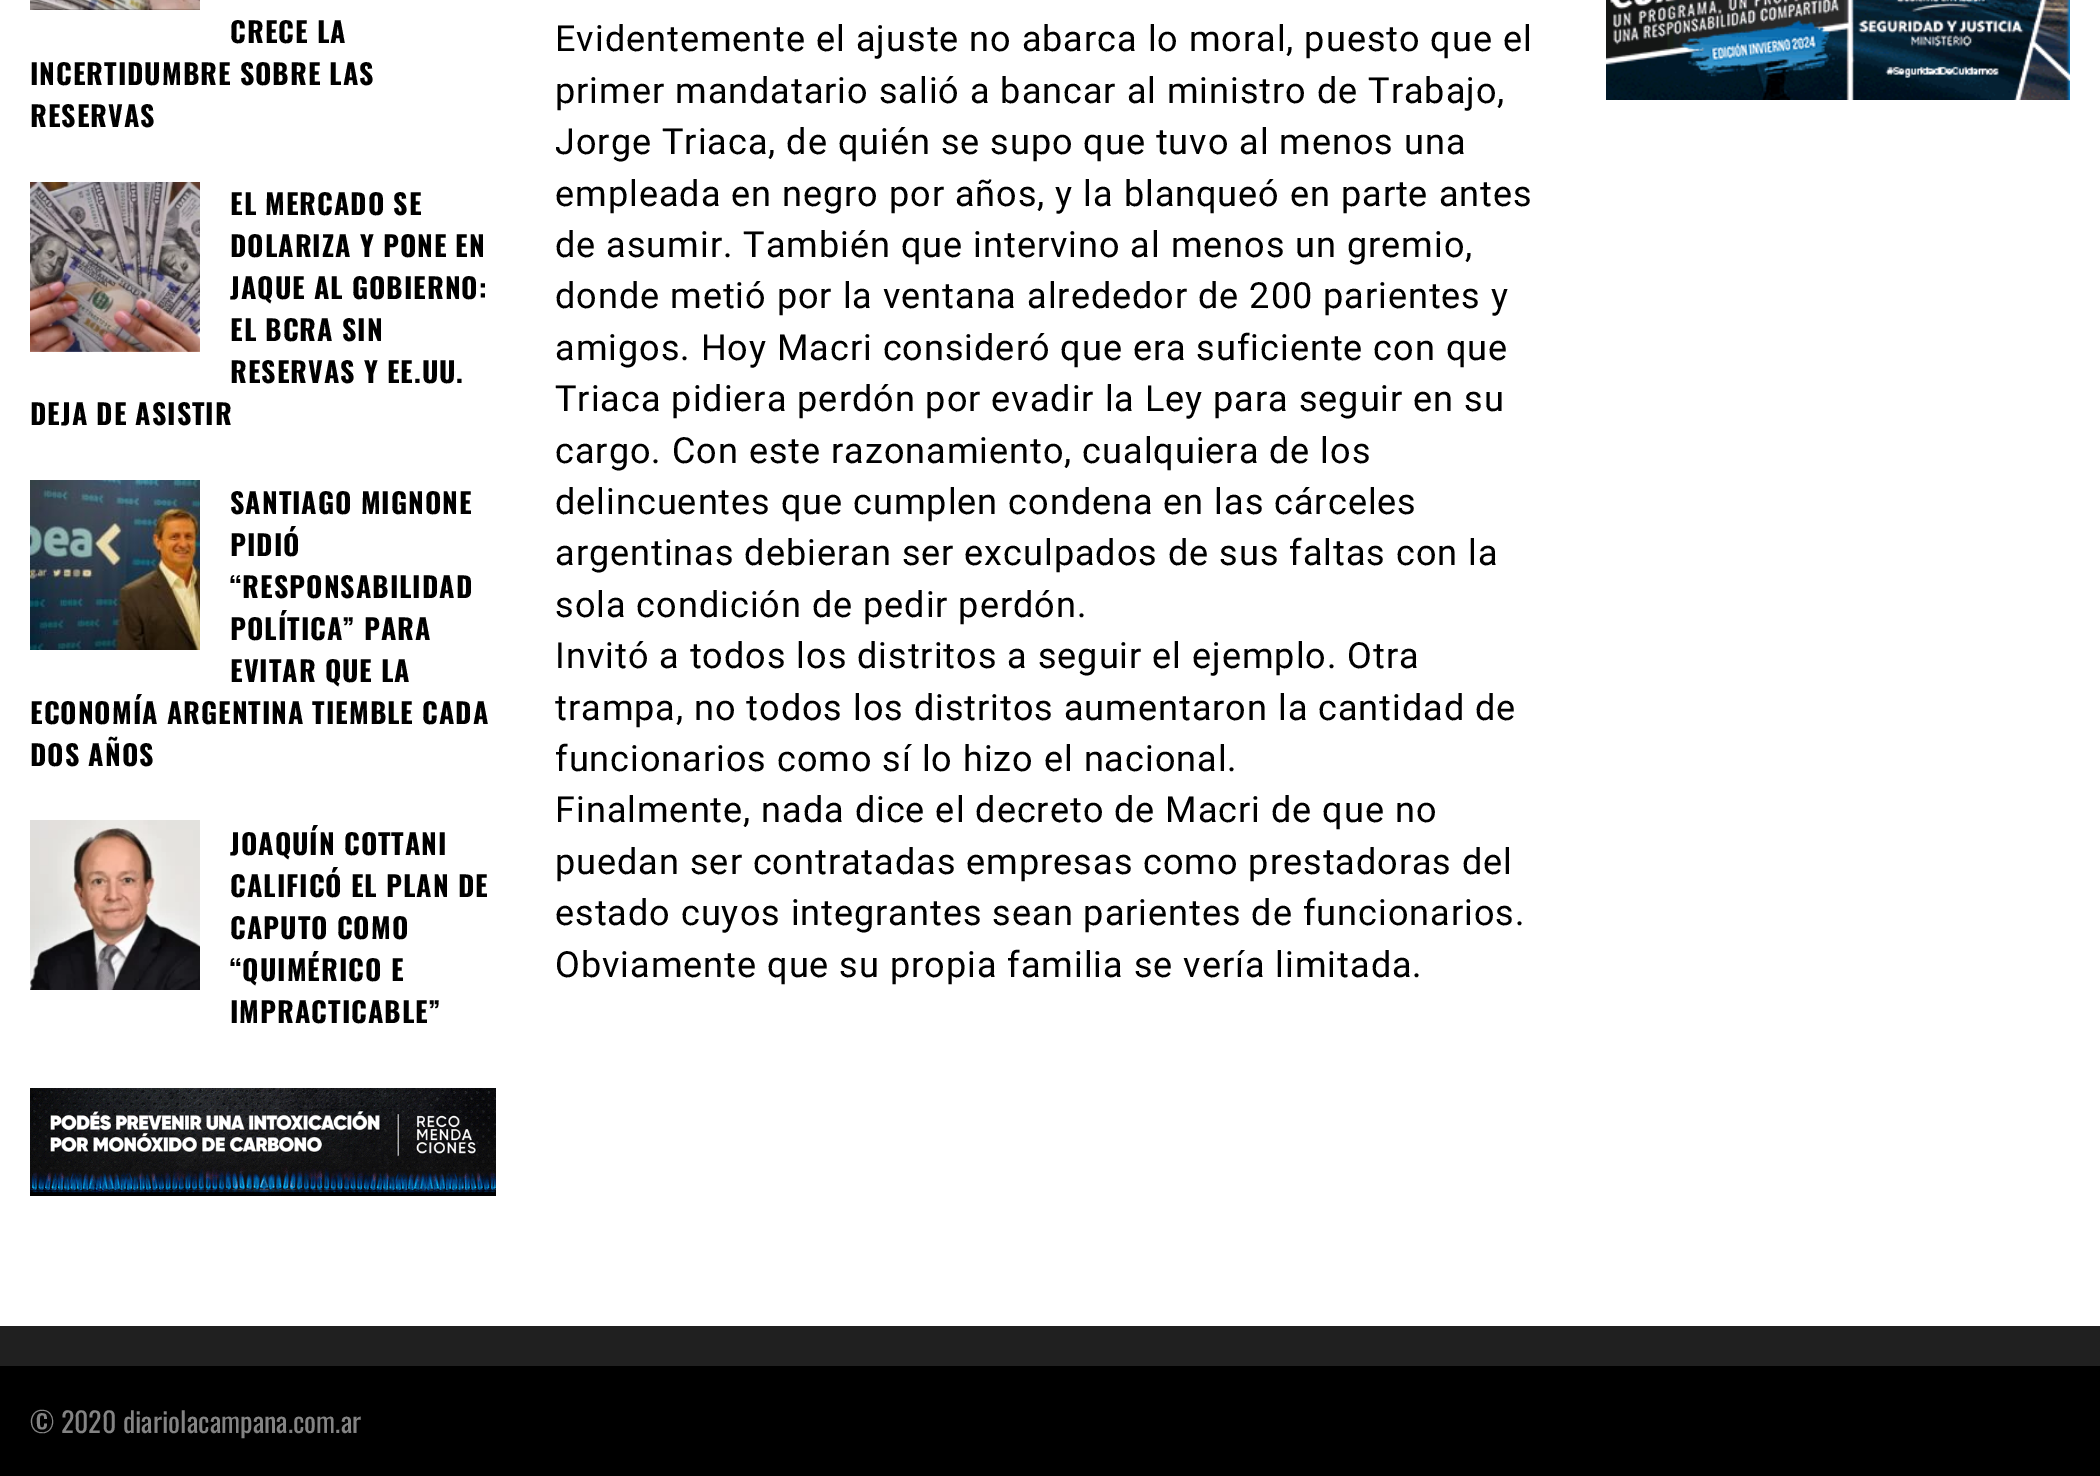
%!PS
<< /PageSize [2100 1476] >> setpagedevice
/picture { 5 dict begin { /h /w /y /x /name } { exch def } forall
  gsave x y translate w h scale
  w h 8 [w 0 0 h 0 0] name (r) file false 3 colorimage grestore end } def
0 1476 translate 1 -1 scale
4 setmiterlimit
1 setgray
0 0 2100 1476 rectfill
(img1.rgb) 30 0 170 10 picture
/Oswald-Bold [28 0 0 -28 0 0] selectfont
0 setgray
230 43 moveto 1 0 (CRECE LA) ashow
30 85 moveto 1 0 (INCERTIDUMBRE SOBRE LAS) ashow
30 127 moveto 1 0 (RESERVAS) ashow
(img2.rgb) 30 182 170 170 picture
230 215 moveto 1 0 (EL MERCADO SE) ashow
230 257 moveto 1 0 (DOLARIZA Y PONE EN) ashow
230 299 moveto 1 0 (JAQUE AL GOBIERNO:) ashow
230 341 moveto 1 0 (EL BCRA SIN) ashow
230 383 moveto 1 0 (RESERVAS Y EE.UU.) ashow
30 425 moveto 1 0 (DEJA DE ASISTIR) ashow
(img3.rgb) 30 480 170 170 picture
230 514 moveto 1 0 (SANTIAGO MIGNONE) ashow
230 556 moveto 1 0 (PIDIÓ) ashow
230 598 moveto 1 0 (“RESPONSABILIDAD) ashow
230 640 moveto 1 0 (POLÍTICA” PARA) ashow
230 682 moveto 1 0 (EVITAR QUE LA) ashow
30 724 moveto 1 0 (ECONOMÍA ARGENTINA TIEMBLE CADA) ashow
30 766 moveto 1 0 (DOS AÑOS) ashow
(img4.rgb) 30 820 170 170 picture
230 855 moveto 1 0 (JOAQUÍN COTTANI) ashow
230 897 moveto 1 0 (CALIFICÓ EL PLAN DE) ashow
230 939 moveto 1 0 (CAPUTO COMO) ashow
230 981 moveto 1 0 (“QUIMÉRICO E) ashow
230 1023 moveto 1 0 (IMPRACTICABLE”) ashow
(img5.rgb) 30 1088 466 108 picture
/Roboto-Regular [36 0 0 -36 0 0] selectfont
555 51 moveto 1 0 (Evidentemente el ajuste no abarca lo moral, puesto que el) ashow
555 103 moveto 1 0 (primer mandatario salió a bancar al ministro de Trabajo,) ashow
555 154 moveto 1 0 (Jorge Triaca, de quién se supo que tuvo al menos una) ashow
555 206 moveto 1 0 (empleada en negro por años, y la blanqueó en parte antes) ashow
555 257 moveto 1 0 (de asumir. También que intervino al menos un gremio,) ashow
555 308 moveto 1 0 (donde metió por la ventana alrededor de 200 parientes y) ashow
555 360 moveto 1 0 (amigos. Hoy Macri consideró que era suficiente con que) ashow
555 411 moveto 1 0 (Triaca pidiera perdón por evadir la Ley para seguir en su) ashow
555 463 moveto 1 0 (cargo. Con este razonamiento, cualquiera de los) ashow
555 514 moveto 1 0 (delincuentes que cumplen condena en las cárceles) ashow
555 565 moveto 1 0 (argentinas debieran ser exculpados de sus faltas con la) ashow
555 617 moveto 1 0 (sola condición de pedir perdón.) ashow
555 668 moveto 1 0 (Invitó a todos los distritos a seguir el ejemplo. Otra) ashow
555 720 moveto 1 0 (trampa, no todos los distritos aumentaron la cantidad de) ashow
555 771 moveto 1 0 (funcionarios como sí lo hizo el nacional.) ashow
555 822 moveto 1 0 (Finalmente, nada dice el decreto de Macri de que no) ashow
555 874 moveto 1 0 (puedan ser contratadas empresas como prestadoras del) ashow
555 925 moveto 1 0 (estado cuyos integrantes sean parientes de funcionarios.) ashow
555 977 moveto 1 0 (Obviamente que su propia familia se vería limitada.) ashow
(img6.rgb) 1606 0 464 100 picture
0.125 setgray
0 1326 2100 40 rectfill
0 setgray
0 1366 2100 110 rectfill
/Oswald-Regular [28 0 0 -28 0 0] selectfont
0.514 setgray
30 1433 moveto (© 2020 diariolacampana.com.ar) show
showpage
